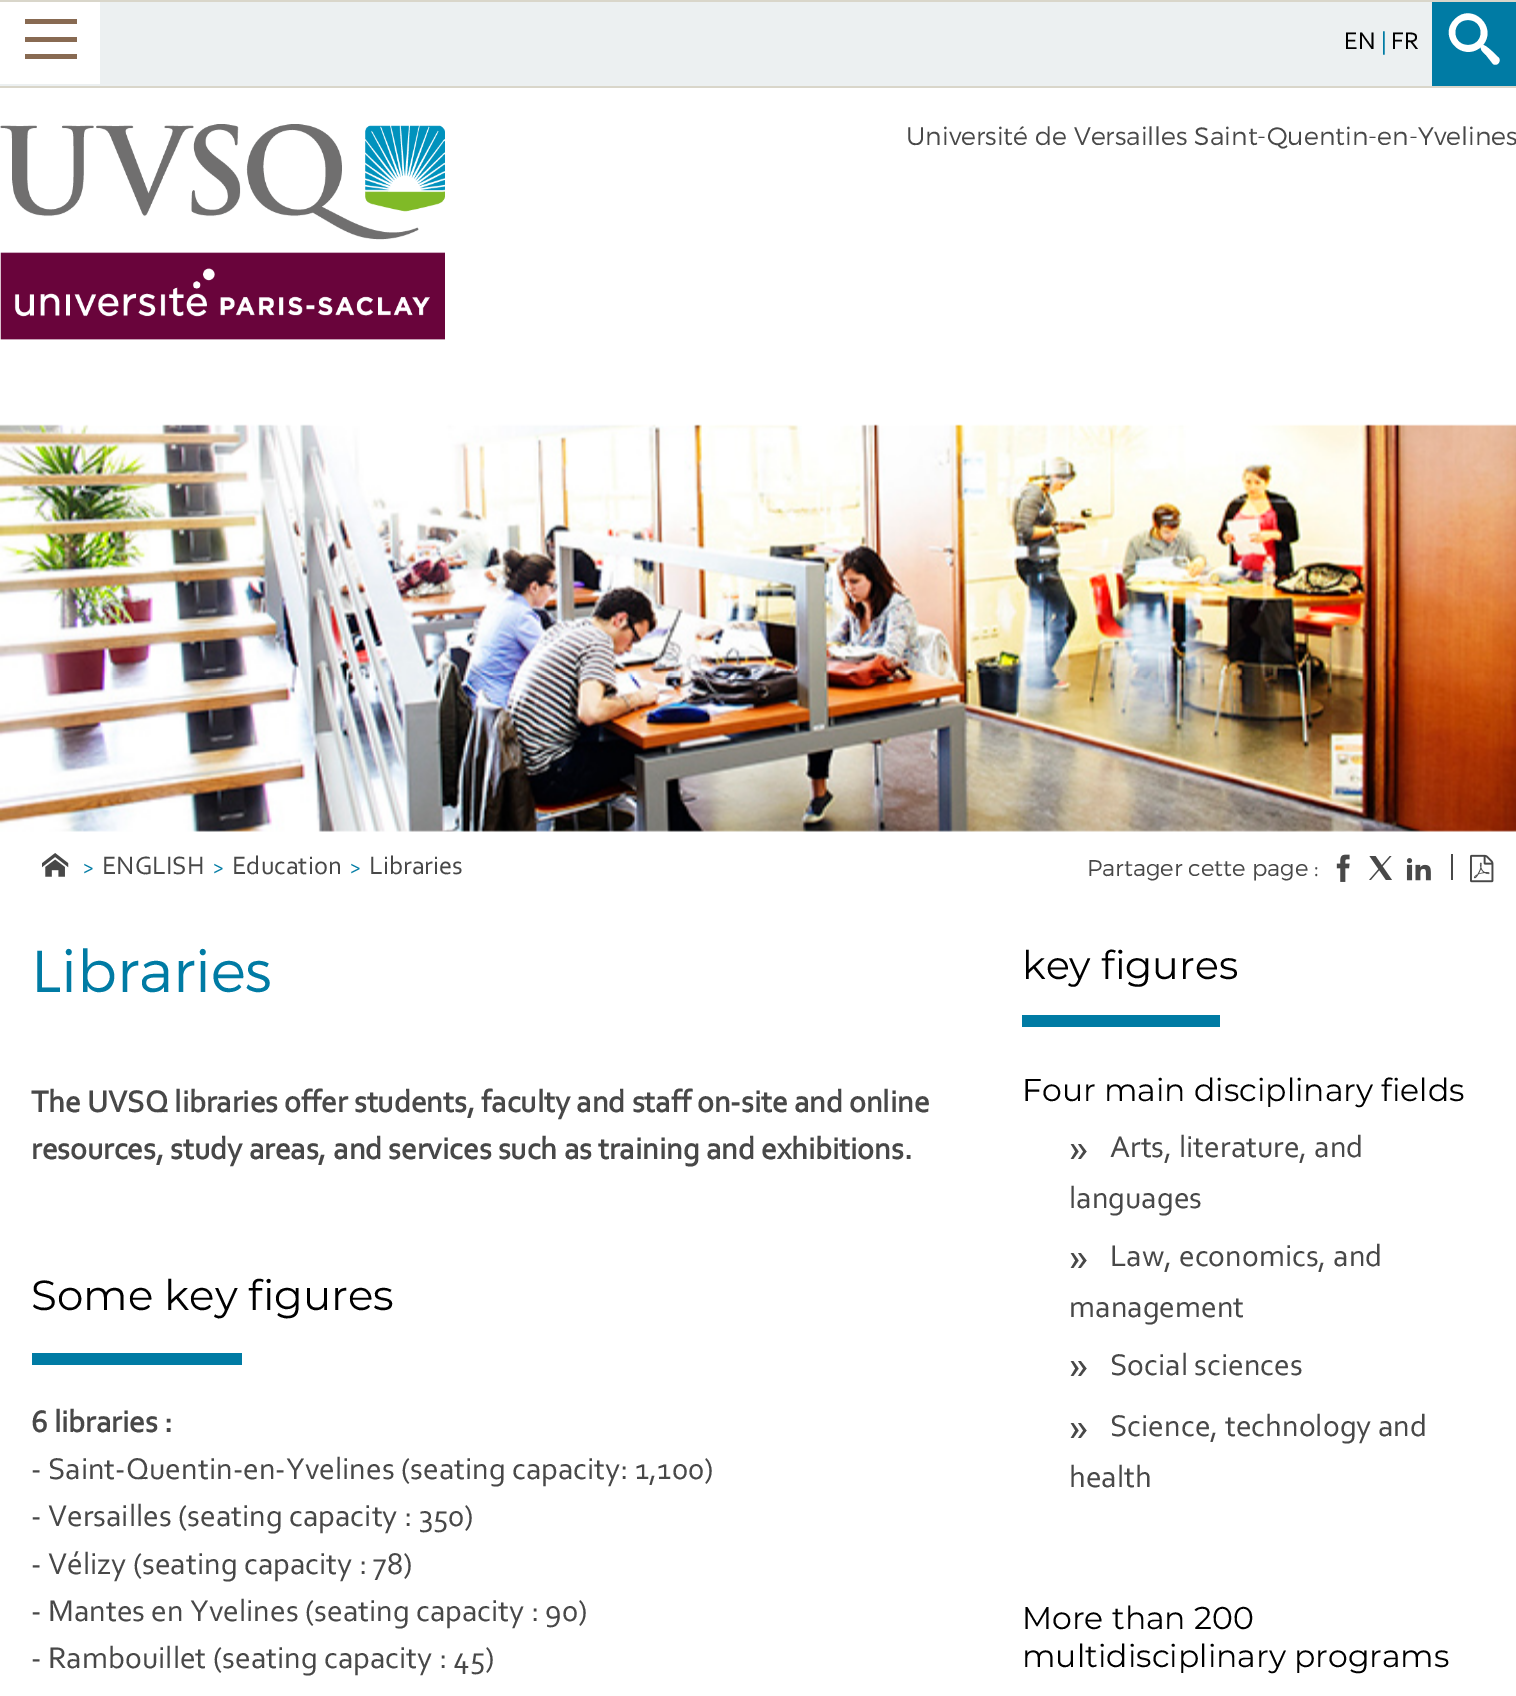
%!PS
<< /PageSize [1516 1696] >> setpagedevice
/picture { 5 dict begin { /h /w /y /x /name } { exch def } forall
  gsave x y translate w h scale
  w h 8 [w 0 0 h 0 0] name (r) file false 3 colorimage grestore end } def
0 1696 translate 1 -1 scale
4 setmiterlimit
1 setgray
0 0 1516 1696 rectfill
0.925 0.941 0.945 setrgbcolor
0 2 1432 84 rectfill
0.851 0.839 0.792 setrgbcolor
0 0 1516 2 rectfill
0 86 1516 2 rectfill
1 setgray
0 2 100 82 rectfill
0.533 0.416 0.322 setrgbcolor
25 37 52 5 rectfill
25 19 52 5 rectfill
25 54 52 5 rectfill
/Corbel-Regular [25.2 0 0 -25.2 0 0] selectfont
0 setgray
1344 49 moveto (EN) show
0 0.482 0.643 setrgbcolor
1381 49 moveto (|) show
0 setgray
1391 49 moveto (FR) show
0 0.482 0.643 setrgbcolor
1432 2 84 84 rectfill
1 setgray
newpath 1498 57 moveto 1496 55 1486 45 1483 45 curveto 1498 27 1472 2 1455 19 curveto 1437 36 1462 63 1481 47 curveto 1480 50 1484 53 1486 55 curveto 1493 64 lineto 1498 67 1502 60 1498 57 curveto closepath 1468 45 moveto 1451 45 1451 20 1468 20 curveto 1485 20 1485 45 1468 45 curveto closepath fill
(img1.rgb) 0 124 445 216 picture
/Montserrat-Light [25.2 0 0 -25.2 0 0] selectfont
0.282 setgray
906 145 moveto (Université de Versailles Saint-Quentin-en-Yvelines) show
(img2.rgb) 0 424 1516 408 picture
(img3.rgb) 42 853 27 24 picture
/Corbel-Regular [21 0 0 -21 0 0] selectfont
0 0.482 0.643 setrgbcolor
83 874 moveto (>) show
/Corbel-Regular [26.25 0 0 -26.25 0 0] selectfont
0.282 setgray
102 874 moveto (ENGLISH) show
/Corbel-Regular [21 0 0 -21 0 0] selectfont
0 0.482 0.643 setrgbcolor
213 874 moveto (>) show
/Corbel-Regular [26.25 0 0 -26.25 0 0] selectfont
0.282 setgray
232 874 moveto (Education) show
/Corbel-Regular [21 0 0 -21 0 0] selectfont
0 0.482 0.643 setrgbcolor
350 874 moveto (>) show
/Corbel-Regular [26.25 0 0 -26.25 0 0] selectfont
0.282 setgray
369 874 moveto (Libraries) show
/Montserrat-Light [22.75 0 0 -22.75 0 0] selectfont
1087 876 moveto (Partager cette page :) show
(img4.rgb) 1336 854 14 28 picture
(img5.rgb) 1369 856 23 24 picture
(img6.rgb) 1406 858 25 23 picture
1451 854 2 26 rectfill
(img7.rgb) 1470 854 24 29 picture
/Montserrat-Light [59 0 0 -59 0 0] selectfont
0 0.482 0.643 setrgbcolor
31 992 moveto (Libraries) show
/Corbel-Bold [31.5 0 0 -31.5 0 0] selectfont
0.282 setgray
31 1112 moveto (The UVSQ libraries offer students, faculty and staff on-site and online) show
31 1159 moveto (resources, study areas, and services such as training and exhibitions.) show
/Montserrat-Thin [42 0 0 -42 0 0] selectfont
0 setgray
31 1310 moveto (Some key figures) show
0 0.482 0.643 setrgbcolor
32 1353 210 12 rectfill
/Corbel-Bold [31.5 0 0 -31.5 0 0] selectfont
0.282 setgray
31 1432 moveto (6 libraries :) show
/Corbel-Regular [31.5 0 0 -31.5 0 0] selectfont
31 1479 moveto (- Saint-Quentin-en-Yvelines \(seating capacity: 1,100\)) show
31 1526 moveto (- Versailles \(seating capacity : 350\)) show
31 1574 moveto (- Vélizy \(seating capacity : 78\)) show
31 1621 moveto (- Mantes en Yvelines \(seating capacity : 90\)) show
31 1668 moveto (- Rambouillet \(seating capacity : 45\)) show
/Montserrat-Thin [39.5 0 0 -39.5 0 0] selectfont
0 setgray
1022 979 moveto (key figures) show
0 0.482 0.643 setrgbcolor
1022 1015 198 12 rectfill
/Montserrat-Thin [31.5 0 0 -31.5 0 0] selectfont
0 setgray
1022 1101 moveto (Four main disciplinary fields) show
/Corbel-Regular [41 0 0 -41 0 0] selectfont
0.282 setgray
1069 1161 moveto (») show
/Corbel-Regular [31.5 0 0 -31.5 0 0] selectfont
1110 1157 moveto (Arts, literature, and) show
1069 1208 moveto (languages) show
/Corbel-Regular [41 0 0 -41 0 0] selectfont
1069 1270 moveto (») show
/Corbel-Regular [31.5 0 0 -31.5 0 0] selectfont
1110 1266 moveto (Law, economics, and) show
1069 1317 moveto (management) show
/Corbel-Regular [41 0 0 -41 0 0] selectfont
1069 1378 moveto (») show
/Corbel-Regular [31.5 0 0 -31.5 0 0] selectfont
1110 1375 moveto (Social sciences) show
/Corbel-Regular [41 0 0 -41 0 0] selectfont
1069 1440 moveto (») show
/Corbel-Regular [31.5 0 0 -31.5 0 0] selectfont
1110 1436 moveto (Science, technology and) show
1069 1487 moveto (health) show
/Montserrat-Thin [31.5 0 0 -31.5 0 0] selectfont
0 setgray
1022 1629 moveto (More than 200) show
1022 1667 moveto (multidisciplinary programs) show
showpage
